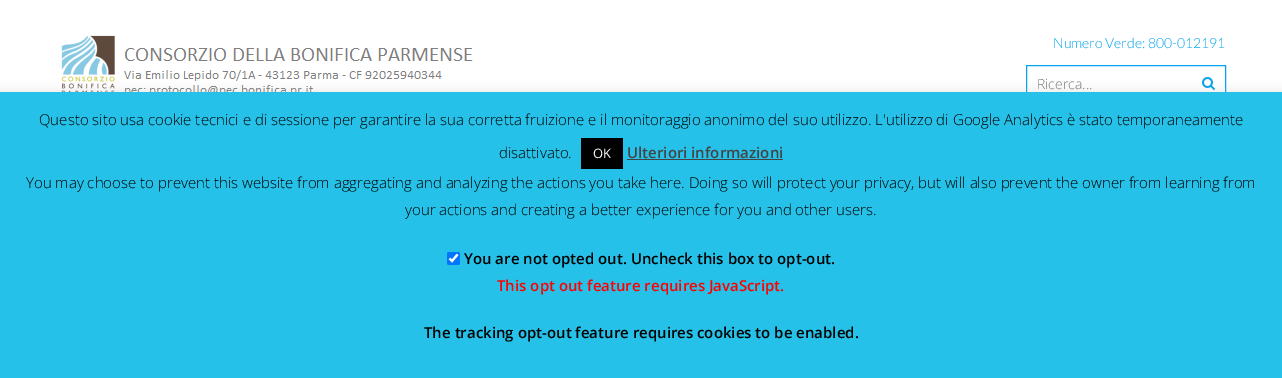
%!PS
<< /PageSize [1282 378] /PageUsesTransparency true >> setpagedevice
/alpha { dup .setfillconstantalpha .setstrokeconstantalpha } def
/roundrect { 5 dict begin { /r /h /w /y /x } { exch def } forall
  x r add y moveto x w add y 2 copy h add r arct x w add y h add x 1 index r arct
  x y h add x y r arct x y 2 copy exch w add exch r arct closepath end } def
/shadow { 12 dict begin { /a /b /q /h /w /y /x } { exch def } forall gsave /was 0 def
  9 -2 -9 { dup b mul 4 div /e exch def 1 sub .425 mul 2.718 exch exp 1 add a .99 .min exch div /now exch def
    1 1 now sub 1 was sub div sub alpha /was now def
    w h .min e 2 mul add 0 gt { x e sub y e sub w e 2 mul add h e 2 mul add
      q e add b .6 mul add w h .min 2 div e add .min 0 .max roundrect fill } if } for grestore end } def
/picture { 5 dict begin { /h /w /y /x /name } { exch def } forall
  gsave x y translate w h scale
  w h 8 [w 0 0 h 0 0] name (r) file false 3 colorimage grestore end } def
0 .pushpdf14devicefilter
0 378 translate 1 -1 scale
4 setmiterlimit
1 setgray
0 0 1282 378 rectfill
(img1.rgb) 56 35 440 57 picture
/Lato-Light [14 0 0 -14 0 0] selectfont
0.016 0.639 0.929 setrgbcolor
1053 48 moveto (Numero Verde: 800-012191) show
1026.5 65.5 199 35 rectstroke
/OpenSans-Light [14 0 0 -14 0 0] selectfont
0.459 setgray
1037 89 moveto (Ricerca...) show
(img2.rgb) 1202 77 13 13 picture
0.675 0.671 0.671 setrgbcolor
0 91 1282 286 0 5 0.3 shadow
0.145 0.757 0.91 setrgbcolor
0 92 1282 286 rectfill
/OpenSans-Light [15 0 0 -15 0 0] selectfont
0 setgray
39 125 moveto (Questo sito usa cookie tecnici e di sessione per garantire la sua corretta fruizione e il monitoraggio anonimo del suo utilizzo. L'utilizzo di Google Analytics è stato temporaneamente) show
499 158 moveto (disattivato.) show
581 138 42 31 rectfill
/OpenSans-Regular [13 0 0 -13 0 0] selectfont
1 setgray
593 158 moveto (OK) show
/OpenSans-SemiBold [15 0 0 -15 0 0] selectfont
0.267 setgray
627 158 moveto (Ulteriori informazioni) show
627 159 156 1 rectfill
/OpenSans-Light [15 0 0 -15 0 0] selectfont
0 setgray
26 188 moveto (You may choose to prevent this website from aggregating and analyzing the actions you take here. Doing so will protect your privacy, but will also prevent the owner from learning from) show
405 215 moveto (your actions and creating a better experience for you and other users.) show
0 0.459 1 setrgbcolor
447 252 13 13 2 roundrect fill
1 setgray
2.1 setlinewidth
newpath 449.5 258.5 moveto 452 261 lineto 457.5 254.5 lineto stroke
/OpenSans-SemiBold [15 0 0 -15 0 0] selectfont
0 setgray
464 264 moveto (You are not opted out. Uncheck this box to opt-out.) show
1 0 0 setrgbcolor
497 291 moveto (This opt out feature requires JavaScript.) show
0 setgray
424 338 moveto (The tracking opt-out feature requires cookies to be enabled.) show
.poppdf14devicefilter showpage
